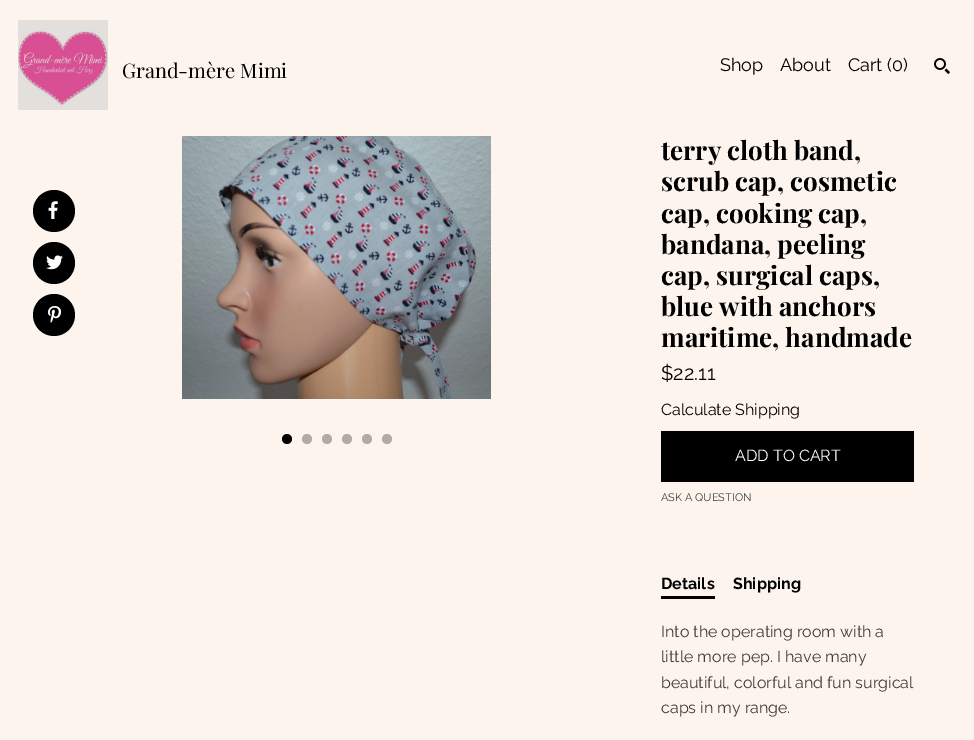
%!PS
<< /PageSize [974 740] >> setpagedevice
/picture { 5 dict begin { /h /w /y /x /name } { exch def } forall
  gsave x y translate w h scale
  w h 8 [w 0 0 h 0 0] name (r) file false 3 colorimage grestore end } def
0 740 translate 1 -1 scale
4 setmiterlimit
0.992 0.957 0.929 setrgbcolor
0 0 974 740 rectfill
(img1.rgb) 18 20 90 90 picture
/PlayfairDisplay-Regular [20 0 0 -20 0 0] selectfont
0 setgray
122 78 moveto (Grand-mère Mimi) show
/Raleway-Regular [18 0 0 -18 0 0] selectfont
720 71 moveto (Shop) show
780 71 moveto (About) show
848 71 moveto (Cart \(0\)) show
(img2.rgb) 934 58 16 16 picture
newpath 54 211 21 0 360 arc closepath fill
1 setgray
48 201 12 18 rectfill
(img3.rgb) 45 200 15 19 picture
0 setgray
newpath 54 263 21 0 360 arc closepath fill
(img4.rgb) 46 255 17 15 picture
newpath 54 315 21 0 360 arc closepath fill
(img5.rgb) 47 306 15 17 picture
(img6.rgb) 182 136 309 263 picture
newpath 287 439 5 0 360 arc closepath fill
0.694 0.671 0.651 setrgbcolor
newpath 307 439 5 0 360 arc closepath fill
newpath 327 439 5 0 360 arc closepath fill
newpath 347 439 5 0 360 arc closepath fill
newpath 367 439 5 0 360 arc closepath fill
newpath 387 439 5 0 360 arc closepath fill
/PlayfairDisplay-Bold [26 0 0 -26 0 0] selectfont
0 setgray
661 160 moveto (terry cloth band,) show
661 191 moveto (scrub cap, cosmetic) show
661 223 moveto (cap, cooking cap,) show
661 254 moveto (bandana, peeling) show
661 285 moveto (cap, surgical caps,) show
661 316 moveto (blue with anchors) show
661 347 moveto (maritime, handmade) show
/Raleway-Regular [20 0 0 -20 0 0] selectfont
661 380 moveto ($22.11) show
/Raleway-Regular [16 0 0 -16 0 0] selectfont
661 415 moveto (Calculate Shipping) show
661 431 253 51 rectfill
1 setgray
735 461 moveto (ADD TO CART) show
/Raleway-Regular [11 0 0 -11 0 0] selectfont
0.247 0.239 0.231 setrgbcolor
661 501 moveto (ASK A QUESTION) show
0 setgray
661 596 54 3 rectfill
/Raleway-Bold [16 0 0 -16 0 0] selectfont
661 589 moveto (Details) show
733 589 moveto (Shipping) show
/Raleway-Regular [16 0 0 -16 0 0] selectfont
0.247 0.239 0.231 setrgbcolor
661 637 moveto (Into the operating room with a) show
661 662 moveto (little more pep. I have many) show
661 688 moveto (beautiful, colorful and fun surgical) show
661 713 moveto (caps in my range.) show
showpage
